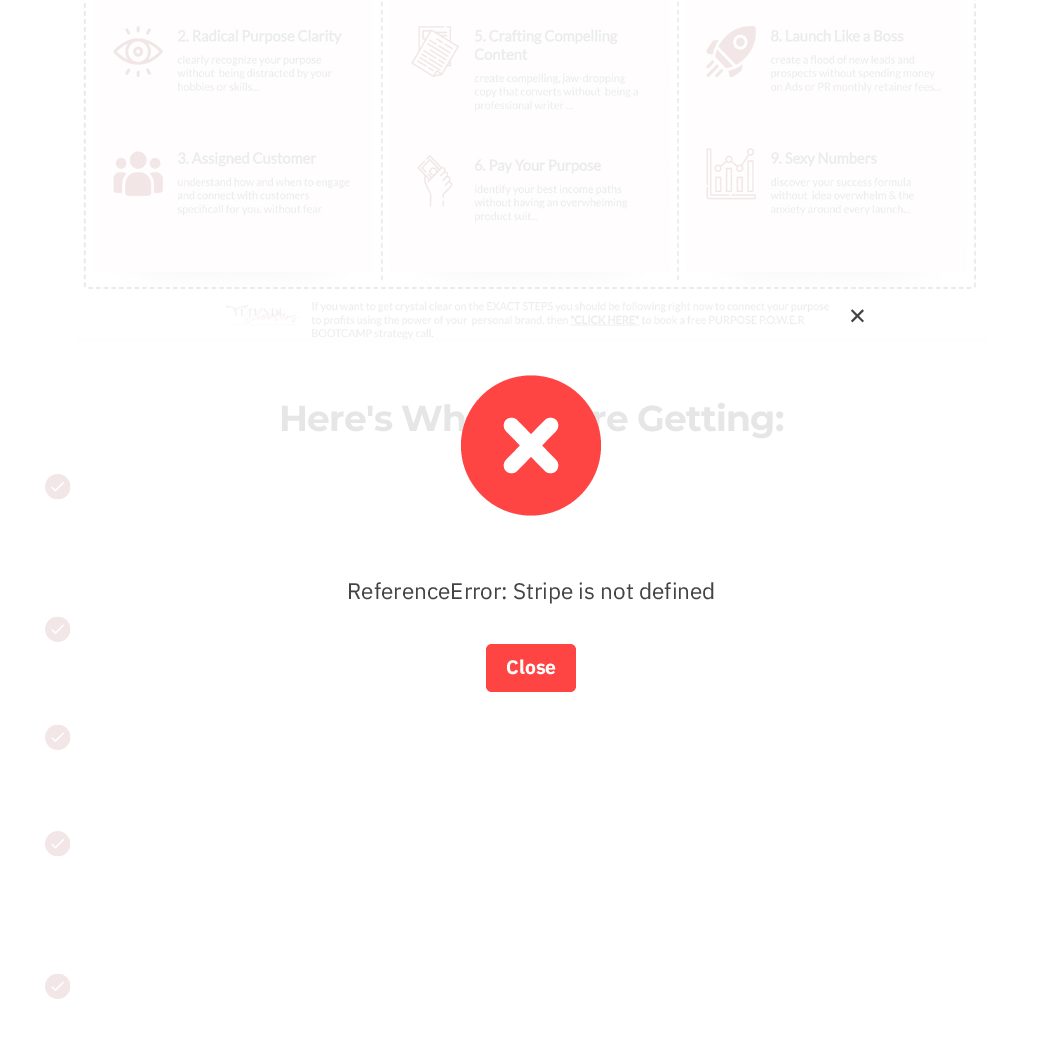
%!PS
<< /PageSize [1062 1040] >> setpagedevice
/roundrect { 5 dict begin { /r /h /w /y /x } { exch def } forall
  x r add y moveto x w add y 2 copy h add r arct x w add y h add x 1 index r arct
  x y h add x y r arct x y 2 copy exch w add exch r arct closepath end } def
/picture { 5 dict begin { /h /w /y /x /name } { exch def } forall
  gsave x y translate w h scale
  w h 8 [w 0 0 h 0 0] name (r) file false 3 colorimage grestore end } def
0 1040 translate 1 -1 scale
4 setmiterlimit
1 setgray
0 0 1062 1040 rectfill
(img1.rgb) 75 0 912 343 picture
/DejaVuSans-Regular [22.5 0 0 -22.5 0 0] selectfont
0.267 setgray
848 324 moveto (✕) show
/Montserrat-Bold [36 0 0 -36 0 0] selectfont
0.902 setgray
279 431 moveto -0.75 0 (Here's Wh) ashow
591 431 moveto -0.75 0 (re Getting:) ashow
1 0.267 0.267 setrgbcolor
newpath 531 445.5 70 0 360 arc closepath fill
1 setgray
newpath 556 471 moveto 559 468 559 463 556 460 curveto 517 420 lineto 514 417 509 417 506 420 curveto 503 423 503 428 506 431 curveto 545 471 lineto 548 474 553 474 556 471 curveto closepath 556 420 moveto 553 417 548 417 545 420 curveto 506 460 lineto 503 463 503 468 506 471 curveto 509 474 514 474 517 471 curveto 556 431 lineto 559 428 559 423 556 420 curveto closepath fill
/IBMPlexSans-Regular [22.5 0 0 -22.5 0 0] selectfont
0.267 setgray
347 599 moveto (ReferenceError: Stripe is not defined) show
1 0.267 0.267 setrgbcolor
486 644 90 48 6 roundrect fill
/IBMPlexSans-Bold [19.5 0 0 -19.5 0 0] selectfont
1 setgray
506 674 moveto (Close) show
(img2.rgb) 45 474 26 26 picture
(img3.rgb) 45 616 26 26 picture
(img3.rgb) 45 724 26 26 picture
(img2.rgb) 45 831 26 26 picture
(img3.rgb) 45 973 26 26 picture
showpage
